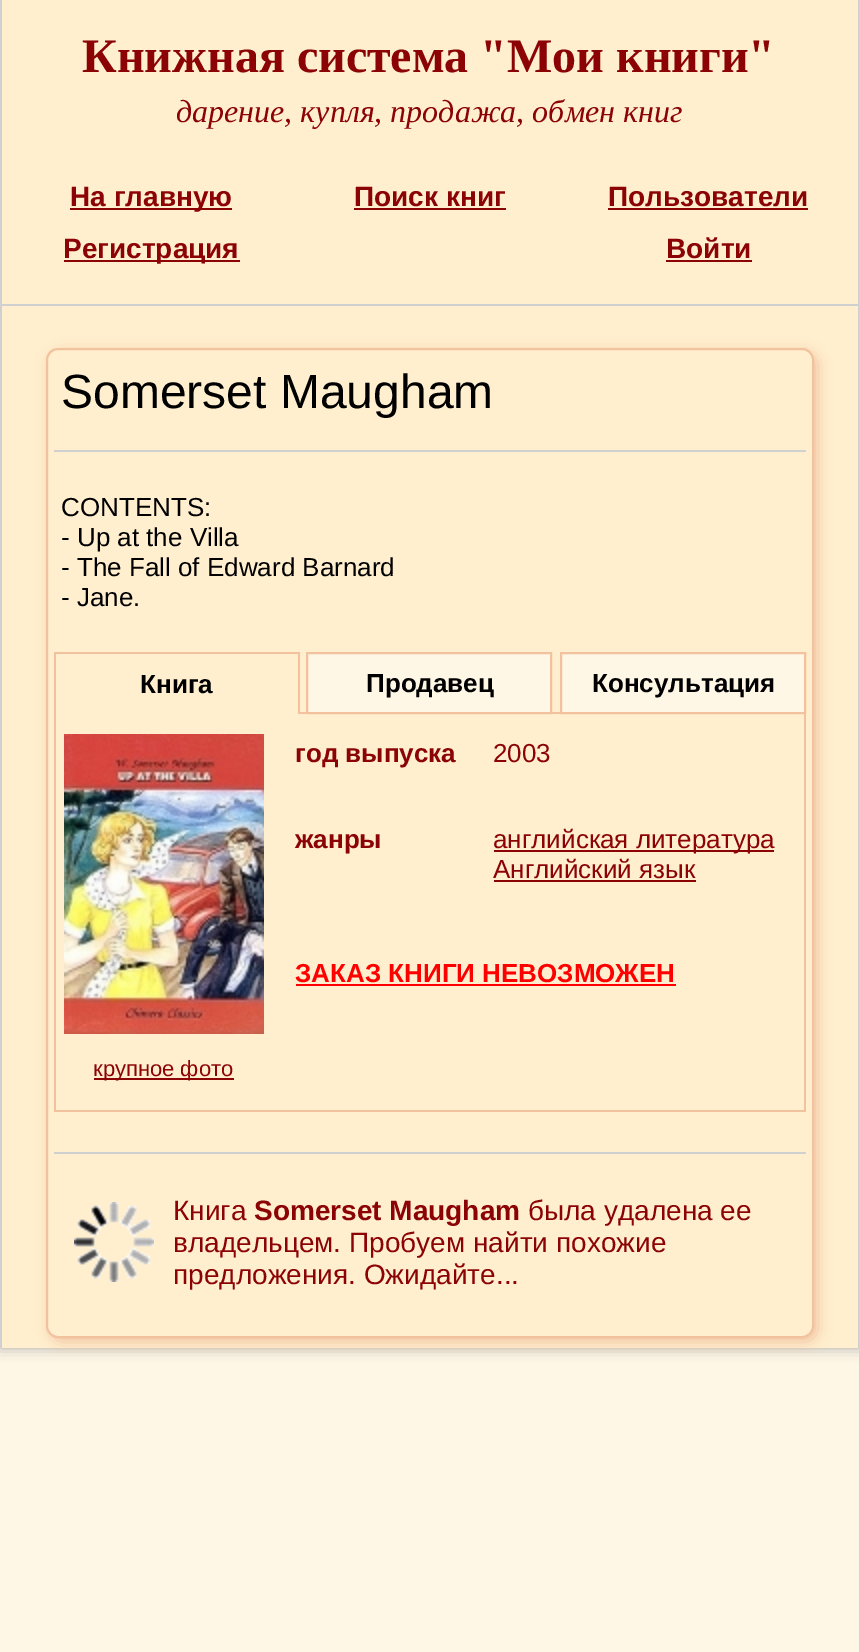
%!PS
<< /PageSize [859 1652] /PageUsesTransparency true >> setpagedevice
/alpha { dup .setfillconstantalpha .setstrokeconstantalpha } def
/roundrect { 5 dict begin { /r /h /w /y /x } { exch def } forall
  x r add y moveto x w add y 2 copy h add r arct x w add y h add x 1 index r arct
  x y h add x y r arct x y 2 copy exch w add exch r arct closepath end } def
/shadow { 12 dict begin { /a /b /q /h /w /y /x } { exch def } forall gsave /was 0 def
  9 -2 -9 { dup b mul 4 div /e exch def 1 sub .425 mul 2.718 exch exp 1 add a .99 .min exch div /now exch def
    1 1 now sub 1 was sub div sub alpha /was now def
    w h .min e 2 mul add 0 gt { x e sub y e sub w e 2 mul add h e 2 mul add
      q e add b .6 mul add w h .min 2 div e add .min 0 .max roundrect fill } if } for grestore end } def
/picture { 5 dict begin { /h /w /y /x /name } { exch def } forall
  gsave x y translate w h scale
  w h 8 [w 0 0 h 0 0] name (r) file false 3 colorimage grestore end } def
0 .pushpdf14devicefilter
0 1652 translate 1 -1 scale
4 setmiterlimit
1 0.969 0.902 setrgbcolor
0 0 859 1652 rectfill
0.667 setgray
0 0 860 1348 0 7 1 shadow
1 0.937 0.812 setrgbcolor
2 0 856 1348 rectfill
0.816 setgray
858 0 1 1348 rectfill
0 0 2 1348 rectfill
2 304 856 2 rectfill
/LiberationSerif-Bold [48 0 0 -48 0 0] selectfont
0.545 0.012 0.016 setrgbcolor
82 72 moveto (Книжная система "Мои книги") show
/LiberationSerif-Italic [32 0 0 -32 0 0] selectfont
176 122 moveto (дарение, купля, продажа, обмен книг) show
70 208 162 2 rectfill
/LiberationSans-Bold [28 0 0 -28 0 0] selectfont
70 206 moveto (На главную) show
354 206 moveto (Поиск книг) show
354 208 152 2 rectfill
608 206 moveto (Пользователи) show
608 208 200 2 rectfill
64 260 176 2 rectfill
63 258 moveto (Регистрация) show
666 258 moveto (Войти) show
666 260 86 2 rectfill
gsave
newpath 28 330 moveto 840 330 lineto 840 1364 lineto 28 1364 lineto closepath 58 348 moveto 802 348 lineto 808.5 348 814 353.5 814 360 curveto 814 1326 lineto 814 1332.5 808.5 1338 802 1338 curveto 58 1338 lineto 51.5 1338 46 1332.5 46 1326 curveto 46 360 lineto 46 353.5 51.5 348 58 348 curveto closepath eoclip newpath
0.949 0.761 0.624 setrgbcolor
50 352 768 990 12 7 1 shadow
grestore
0.949 0.761 0.624 setrgbcolor
2 setlinewidth
47 349 766 988 11 roundrect stroke
0.816 setgray
54 450 752 2 rectfill
/LiberationSans-Regular [48 0 0 -48 0 0] selectfont
0 setgray
61 408 moveto (Somerset Maugham) show
/LiberationSans-Regular [26 0 0 -26 0 0] selectfont
61 516 moveto (CONTENTS:) show
61 546 moveto (- Up at the Villa) show
61 576 moveto (- The Fall of Edward Barnard) show
61 606 moveto (- Jane.) show
0.949 0.761 0.624 setrgbcolor
54 652 246 2 rectfill
298 652 2 62 rectfill
54 652 2 62 rectfill
/LiberationSans-Bold [26 0 0 -26 0 0] selectfont
0 setgray
140 693 moveto (Книга) show
1 0.969 0.902 setrgbcolor
newpath 307 653 moveto 551 653 lineto 551 713 lineto 307 713 lineto closepath gsave fill grestore
0.949 0.761 0.624 setrgbcolor
stroke
0 setgray
366 692 moveto (Продавец) show
1 0.969 0.902 setrgbcolor
newpath 561 653 moveto 805 653 lineto 805 713 lineto 561 713 lineto closepath gsave fill grestore
0.949 0.761 0.624 setrgbcolor
stroke
0 setgray
592 692 moveto (Консультация) show
0.949 0.761 0.624 setrgbcolor
300 712 6 2 rectfill
552 712 8 2 rectfill
804 714 2 398 rectfill
288 1110 518 2 rectfill
0.545 0.012 0.016 setrgbcolor
295 762 moveto (год выпуска) show
/LiberationSans-Regular [26 0 0 -26 0 0] selectfont
493 762 moveto (2003) show
/LiberationSans-Bold [26 0 0 -26 0 0] selectfont
295 848 moveto (жанры) show
494 850 280 2 rectfill
/LiberationSans-Regular [26 0 0 -26 0 0] selectfont
493 848 moveto (английская литература) show
493 878 moveto (Английский язык) show
494 880 202 2 rectfill
/LiberationSans-Bold [26 0 0 -26 0 0] selectfont
1 0 0 setrgbcolor
295 982 moveto (ЗАКАЗ КНИГИ НЕВОЗМОЖЕН) show
296 984 380 2 rectfill
0.949 0.761 0.624 setrgbcolor
54 1110 234 2 rectfill
54 714 2 398 rectfill
(img1.rgb) 64 734 200 300 picture
0.545 0.012 0.016 setrgbcolor
94 1078 140 2 rectfill
/LiberationSans-Regular [22 0 0 -22 0 0] selectfont
93 1076 moveto (крупное фото) show
0.816 setgray
54 1152 752 2 rectfill
(img2.rgb) 74 1202 80 80 picture
/LiberationSans-Regular [28 0 0 -28 0 0] selectfont
0.545 0.012 0.016 setrgbcolor
173 1220 moveto (Книга) show
/LiberationSans-Bold [28 0 0 -28 0 0] selectfont
254 1220 moveto (Somerset Maugham) show
/LiberationSans-Regular [28 0 0 -28 0 0] selectfont
528 1220 moveto (была удалена ее) show
173 1252 moveto (владельцем. Пробуем найти похожие) show
173 1284 moveto (предложения. Ожидайте...) show
.poppdf14devicefilter showpage
